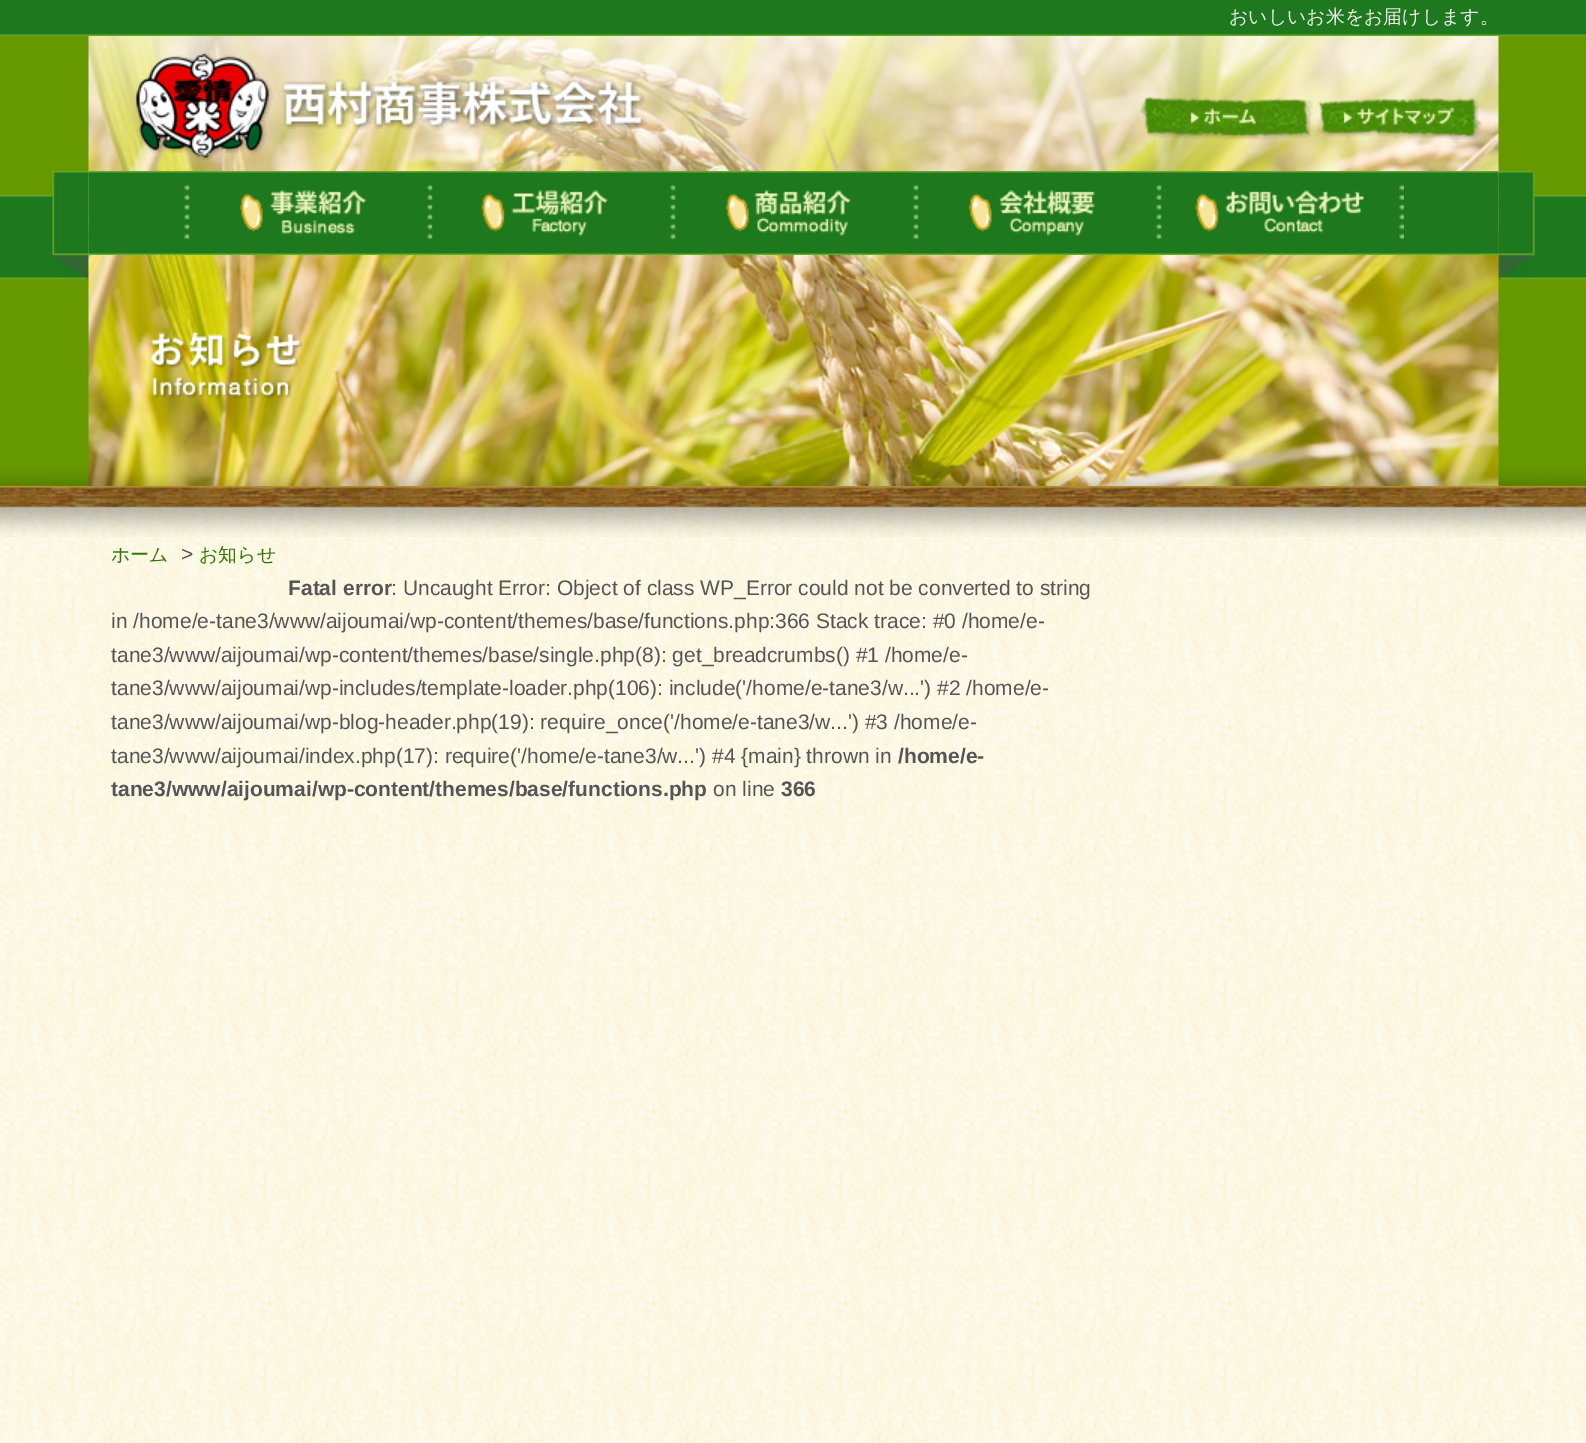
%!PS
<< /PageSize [1586 1443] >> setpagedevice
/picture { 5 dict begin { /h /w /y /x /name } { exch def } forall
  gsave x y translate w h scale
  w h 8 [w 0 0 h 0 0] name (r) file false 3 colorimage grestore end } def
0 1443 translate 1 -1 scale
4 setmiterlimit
1 setgray
0 0 1586 1443 rectfill
(img1.rgb) 0 537 1586 906 picture
(img2.rgb) 0 0 1586 537 picture
(img3.rgb) 52 168 1483 369 picture
/WenQuanYiZenHei-Medium [18.9 0 0 -18.9 0 0] selectfont
0.933 setgray
1229 23 moveto (おいしいお米をお届けします。) show
(img4.rgb) 88 36 1411 450 picture
(img5.rgb) 135 53 512 108 picture
(img6.rgb) 1140 97 173 43 picture
(img7.rgb) 1317 97 165 43 picture
(img8.rgb) 88 171 1411 84 picture
(img9.rgb) 184 184 183 55 picture
(img10.rgb) 427 184 181 55 picture
(img11.rgb) 670 184 181 55 picture
(img12.rgb) 913 184 183 55 picture
(img13.rgb) 1156 184 248 55 picture
(img14.rgb) 151 331 152 68 picture
0.2 0.467 0 setrgbcolor
111 561 moveto (ホーム) show
/LiberationSans-Regular [21 0 0 -21 0 0] selectfont
0.333 setgray
181 561 moveto (>) show
/WenQuanYiZenHei-Medium [18.9 0 0 -18.9 0 0] selectfont
0.2 0.467 0 setrgbcolor
199 561 moveto (お知らせ) show
/LiberationSans-Bold [21 0 0 -21 0 0] selectfont
0.333 setgray
288 595 moveto (Fatal error) show
/LiberationSans-Regular [21 0 0 -21 0 0] selectfont
391 595 moveto (: Uncaught Error: Object of class WP_Error could not be converted to string) show
111 628 moveto (in /home/e-tane3/www/aijoumai/wp-content/themes/base/functions.php:366 Stack trace: #0 /home/e-) show
111 662 moveto (tane3/www/aijoumai/wp-content/themes/base/single.php\(8\): get_breadcrumbs\(\) #1 /home/e-) show
111 695 moveto (tane3/www/aijoumai/wp-includes/template-loader.php\(106\): include\('/home/e-tane3/w...'\) #2 /home/e-) show
111 729 moveto (tane3/www/aijoumai/wp-blog-header.php\(19\): require_once\('/home/e-tane3/w...'\) #3 /home/e-) show
111 763 moveto (tane3/www/aijoumai/index.php\(17\): require\('/home/e-tane3/w...'\) #4 {main} thrown in) show
/LiberationSans-Bold [21 0 0 -21 0 0] selectfont
898 763 moveto (/home/e-) show
111 796 moveto (tane3/www/aijoumai/wp-content/themes/base/functions.php) show
/LiberationSans-Regular [21 0 0 -21 0 0] selectfont
713 796 moveto (on line) show
/LiberationSans-Bold [21 0 0 -21 0 0] selectfont
781 796 moveto (366) show
showpage
